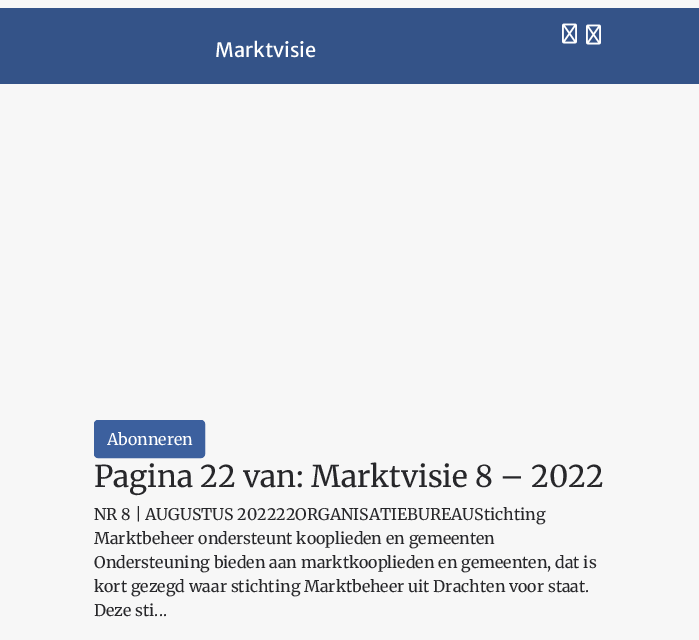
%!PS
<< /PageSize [699 640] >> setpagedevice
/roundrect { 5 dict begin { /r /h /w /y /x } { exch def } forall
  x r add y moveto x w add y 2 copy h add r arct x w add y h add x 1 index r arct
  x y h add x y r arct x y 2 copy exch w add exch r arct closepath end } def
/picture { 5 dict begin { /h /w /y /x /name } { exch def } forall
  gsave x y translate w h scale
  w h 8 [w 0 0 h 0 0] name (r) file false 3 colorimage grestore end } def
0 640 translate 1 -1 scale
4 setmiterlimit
0.969 setgray
0 0 699 640 rectfill
0.204 0.325 0.533 setrgbcolor
0 8 699 76 rectfill
(img1.rgb) 562 23 15 21 picture
(img1.rgb) 586 24 15 21 picture
/MerriweatherSans-Regular [20 0 0 -20 0 0] selectfont
1 setgray
215 57 moveto (Marktvisie) show
0.235 0.376 0.62 setrgbcolor
94.5 420.5 110 37 3.5 roundrect gsave fill grestore
stroke
/Merriweather-Regular [16 0 0 -16 0 0] selectfont
1 setgray
107 445 moveto (Abonneren) show
/Merriweather-Regular [30 0 0 -30 0 0] selectfont
0.153 0.153 0.165 setrgbcolor
94 487 moveto (Pagina 22 van: Marktvisie 8 – 2022) show
/Merriweather-Regular [16 0 0 -16 0 0] selectfont
94 520 moveto (NR 8 | AUGUSTUS 202222ORGANISATIEBUREAUStichting) show
94 544 moveto (Marktbeheer ondersteunt kooplieden en gemeenten) show
94 568 moveto (Ondersteuning bieden aan marktkooplieden en gemeenten, dat is) show
94 592 moveto (kort gezegd waar stichting Marktbeheer uit Drachten voor staat.) show
94 616 moveto (Deze sti...) show
showpage
